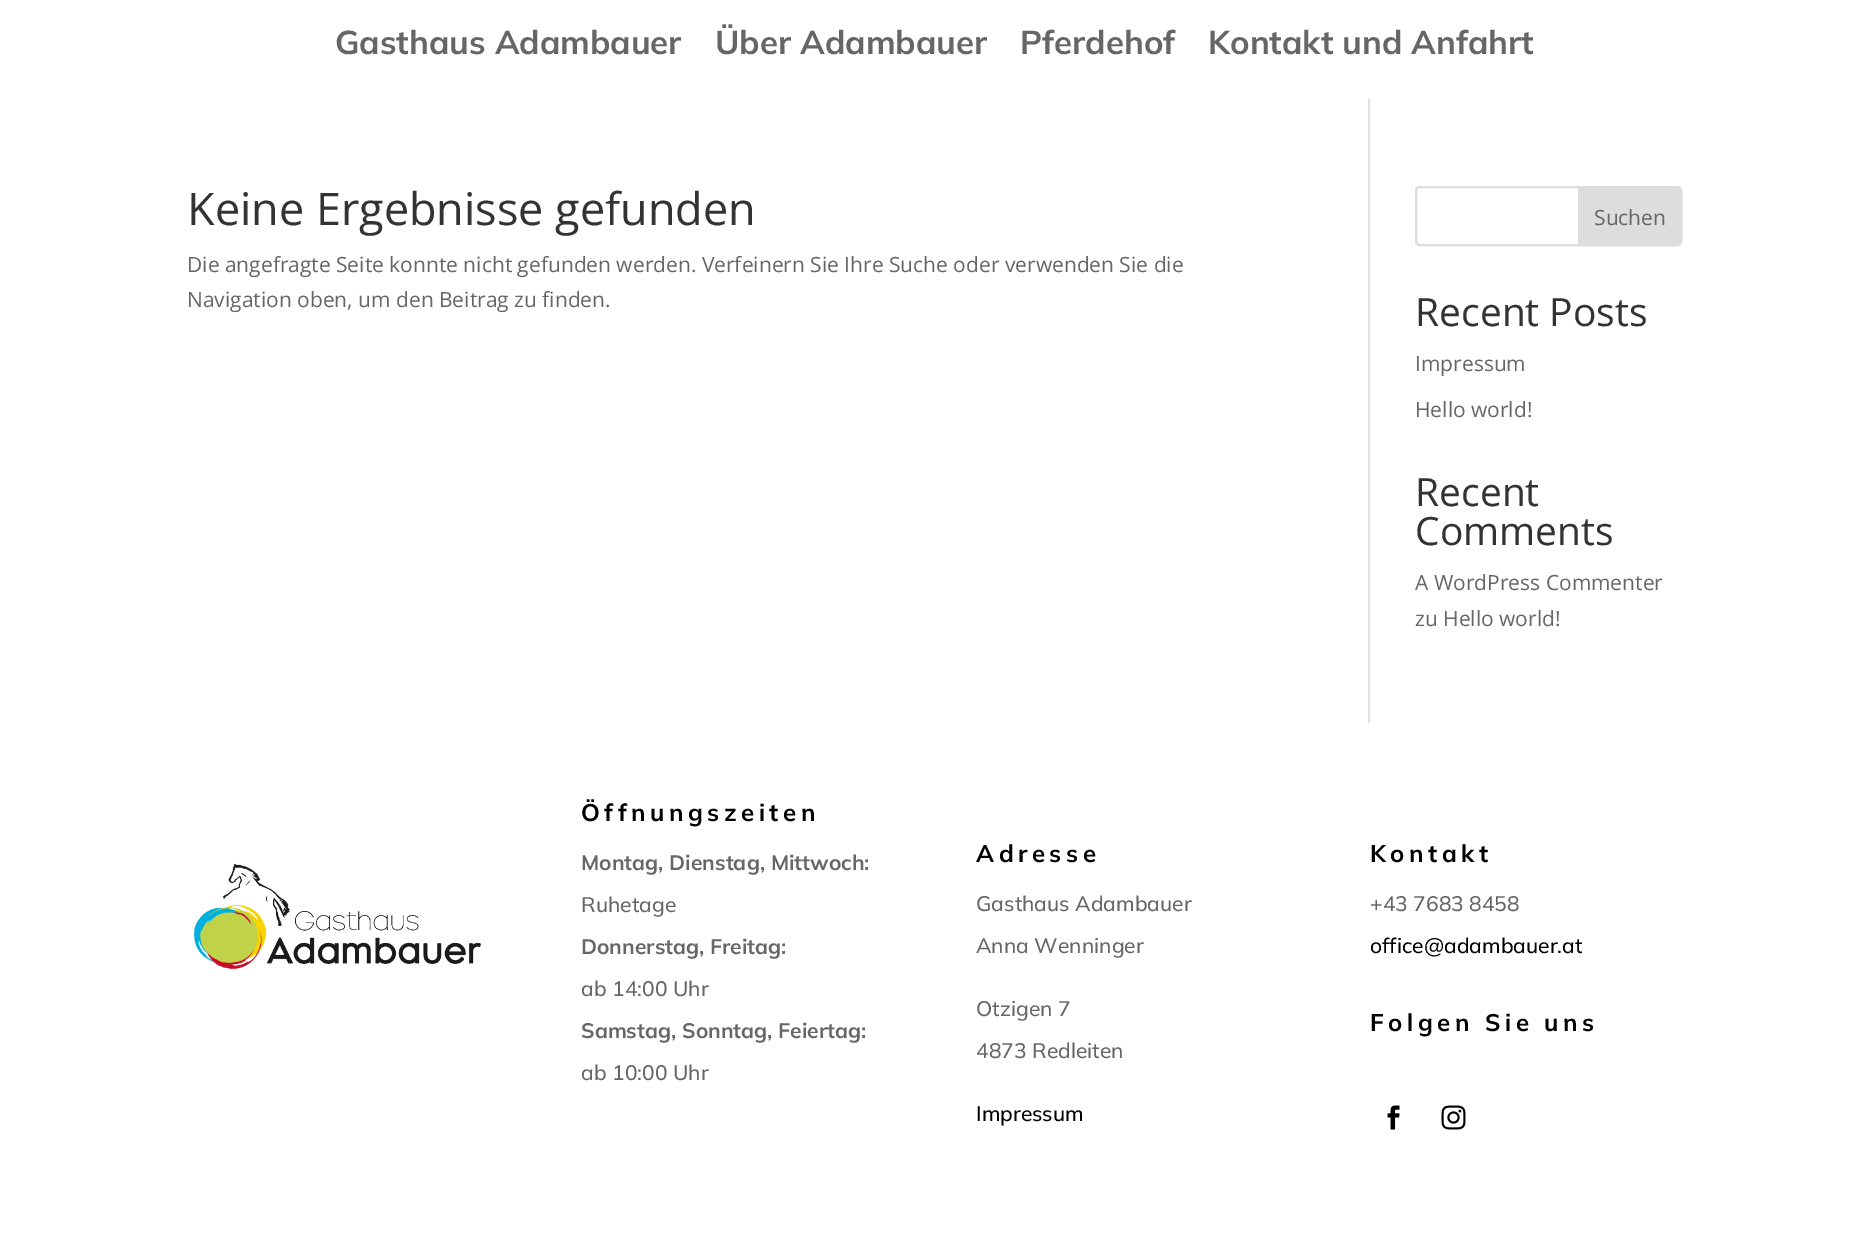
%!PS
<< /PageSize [1869 1257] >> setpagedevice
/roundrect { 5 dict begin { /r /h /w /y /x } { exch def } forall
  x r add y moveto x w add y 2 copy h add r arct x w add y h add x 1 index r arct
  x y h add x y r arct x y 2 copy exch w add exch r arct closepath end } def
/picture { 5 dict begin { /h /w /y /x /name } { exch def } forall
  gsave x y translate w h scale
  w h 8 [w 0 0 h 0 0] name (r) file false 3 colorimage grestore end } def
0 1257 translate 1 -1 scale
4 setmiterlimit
1 setgray
0 0 1869 1257 rectfill
/Mulish-Bold [33 0 0 -33 0 0] selectfont
0.4 setgray
335 54 moveto (Gasthaus Adambauer) show
715 54 moveto (Über Adambauer) show
1020 54 moveto (Pferdehof) show
1208 54 moveto (Kontakt und Anfahrt) show
0.886 setgray
1368 99 2 624 rectfill
/OpenSans-Regular [45 0 0 -45 0 0] selectfont
0.2 setgray
187 225 moveto (Keine Ergebnisse gefunden) show
/OpenSans-Regular [21 0 0 -21 0 0] selectfont
0.4 setgray
187 272 moveto (Die angefragte Seite konnte nicht gefunden werden. Verfeinern Sie Ihre Suche oder verwenden Sie die) show
187 307 moveto (Navigation oben, um den Beitrag zu finden.) show
0.867 setgray
2 setlinewidth
1416 187 265 58 4 roundrect stroke
newpath 1579 187 moveto 1677 187 lineto 1679 187 1681 189 1681 191 curveto 1681 241 lineto 1681 243 1679 245 1677 245 curveto 1579 245 lineto closepath gsave fill grestore
stroke
0.4 setgray
1594 225 moveto (Suchen) show
/OpenSans-Regular [39 0 0 -39 0 0] selectfont
0.2 setgray
1415 326 moveto (Recent Posts) show
/OpenSans-Regular [21 0 0 -21 0 0] selectfont
0.4 setgray
1415 371 moveto (Impressum) show
1415 417 moveto (Hello world!) show
/OpenSans-Regular [39 0 0 -39 0 0] selectfont
0.2 setgray
1415 506 moveto (Recent) show
1415 545 moveto (Comments) show
/OpenSans-Regular [21 0 0 -21 0 0] selectfont
0.4 setgray
1415 590 moveto (A WordPress Commenter) show
1415 626 moveto (zu Hello world!) show
(img1.rgb) 194 863 287 106 picture
/Mulish-Bold [24 0 0 -24 0 0] selectfont
0 setgray
581 821 moveto 4.5 0 (Öffnungszeiten) ashow
/Mulish-Bold [21 0 0 -21 0 0] selectfont
0.4 setgray
581 870 moveto (Montag, Dienstag, Mittwoch:) show
/Mulish-Medium [21 0 0 -21 0 0] selectfont
581 912 moveto (Ruhetage) show
/Mulish-Bold [21 0 0 -21 0 0] selectfont
581 954 moveto (Donnerstag, Freitag:) show
/Mulish-Medium [21 0 0 -21 0 0] selectfont
581 996 moveto (ab 14:00 Uhr) show
/Mulish-Bold [21 0 0 -21 0 0] selectfont
581 1038 moveto (Samstag, Sonntag, Feiertag:) show
/Mulish-Medium [21 0 0 -21 0 0] selectfont
581 1080 moveto (ab 10:00 Uhr) show
/Mulish-Bold [24 0 0 -24 0 0] selectfont
0 setgray
976 862 moveto 4.5 0 (Adresse) ashow
/Mulish-Medium [21 0 0 -21 0 0] selectfont
0.4 setgray
976 911 moveto (Gasthaus Adambauer) show
976 953 moveto (Anna Wenninger) show
976 1016 moveto (Otzigen 7) show
976 1058 moveto (4873 Redleiten) show
0 setgray
976 1121 moveto (Impressum) show
/Mulish-Bold [24 0 0 -24 0 0] selectfont
1370 862 moveto 4.5 0 (Kontakt) ashow
/Mulish-Medium [21 0 0 -21 0 0] selectfont
0.4 setgray
1370 911 moveto (+43 7683 8458) show
0 setgray
1370 953 moveto (office@adambauer.at) show
/Mulish-Bold [24 0 0 -24 0 0] selectfont
1370 1031 moveto 4.5 0 (Folgen Sie uns) ashow
(img2.rgb) 1387 1105 13 25 picture
(img3.rgb) 1441 1105 25 25 picture
showpage
